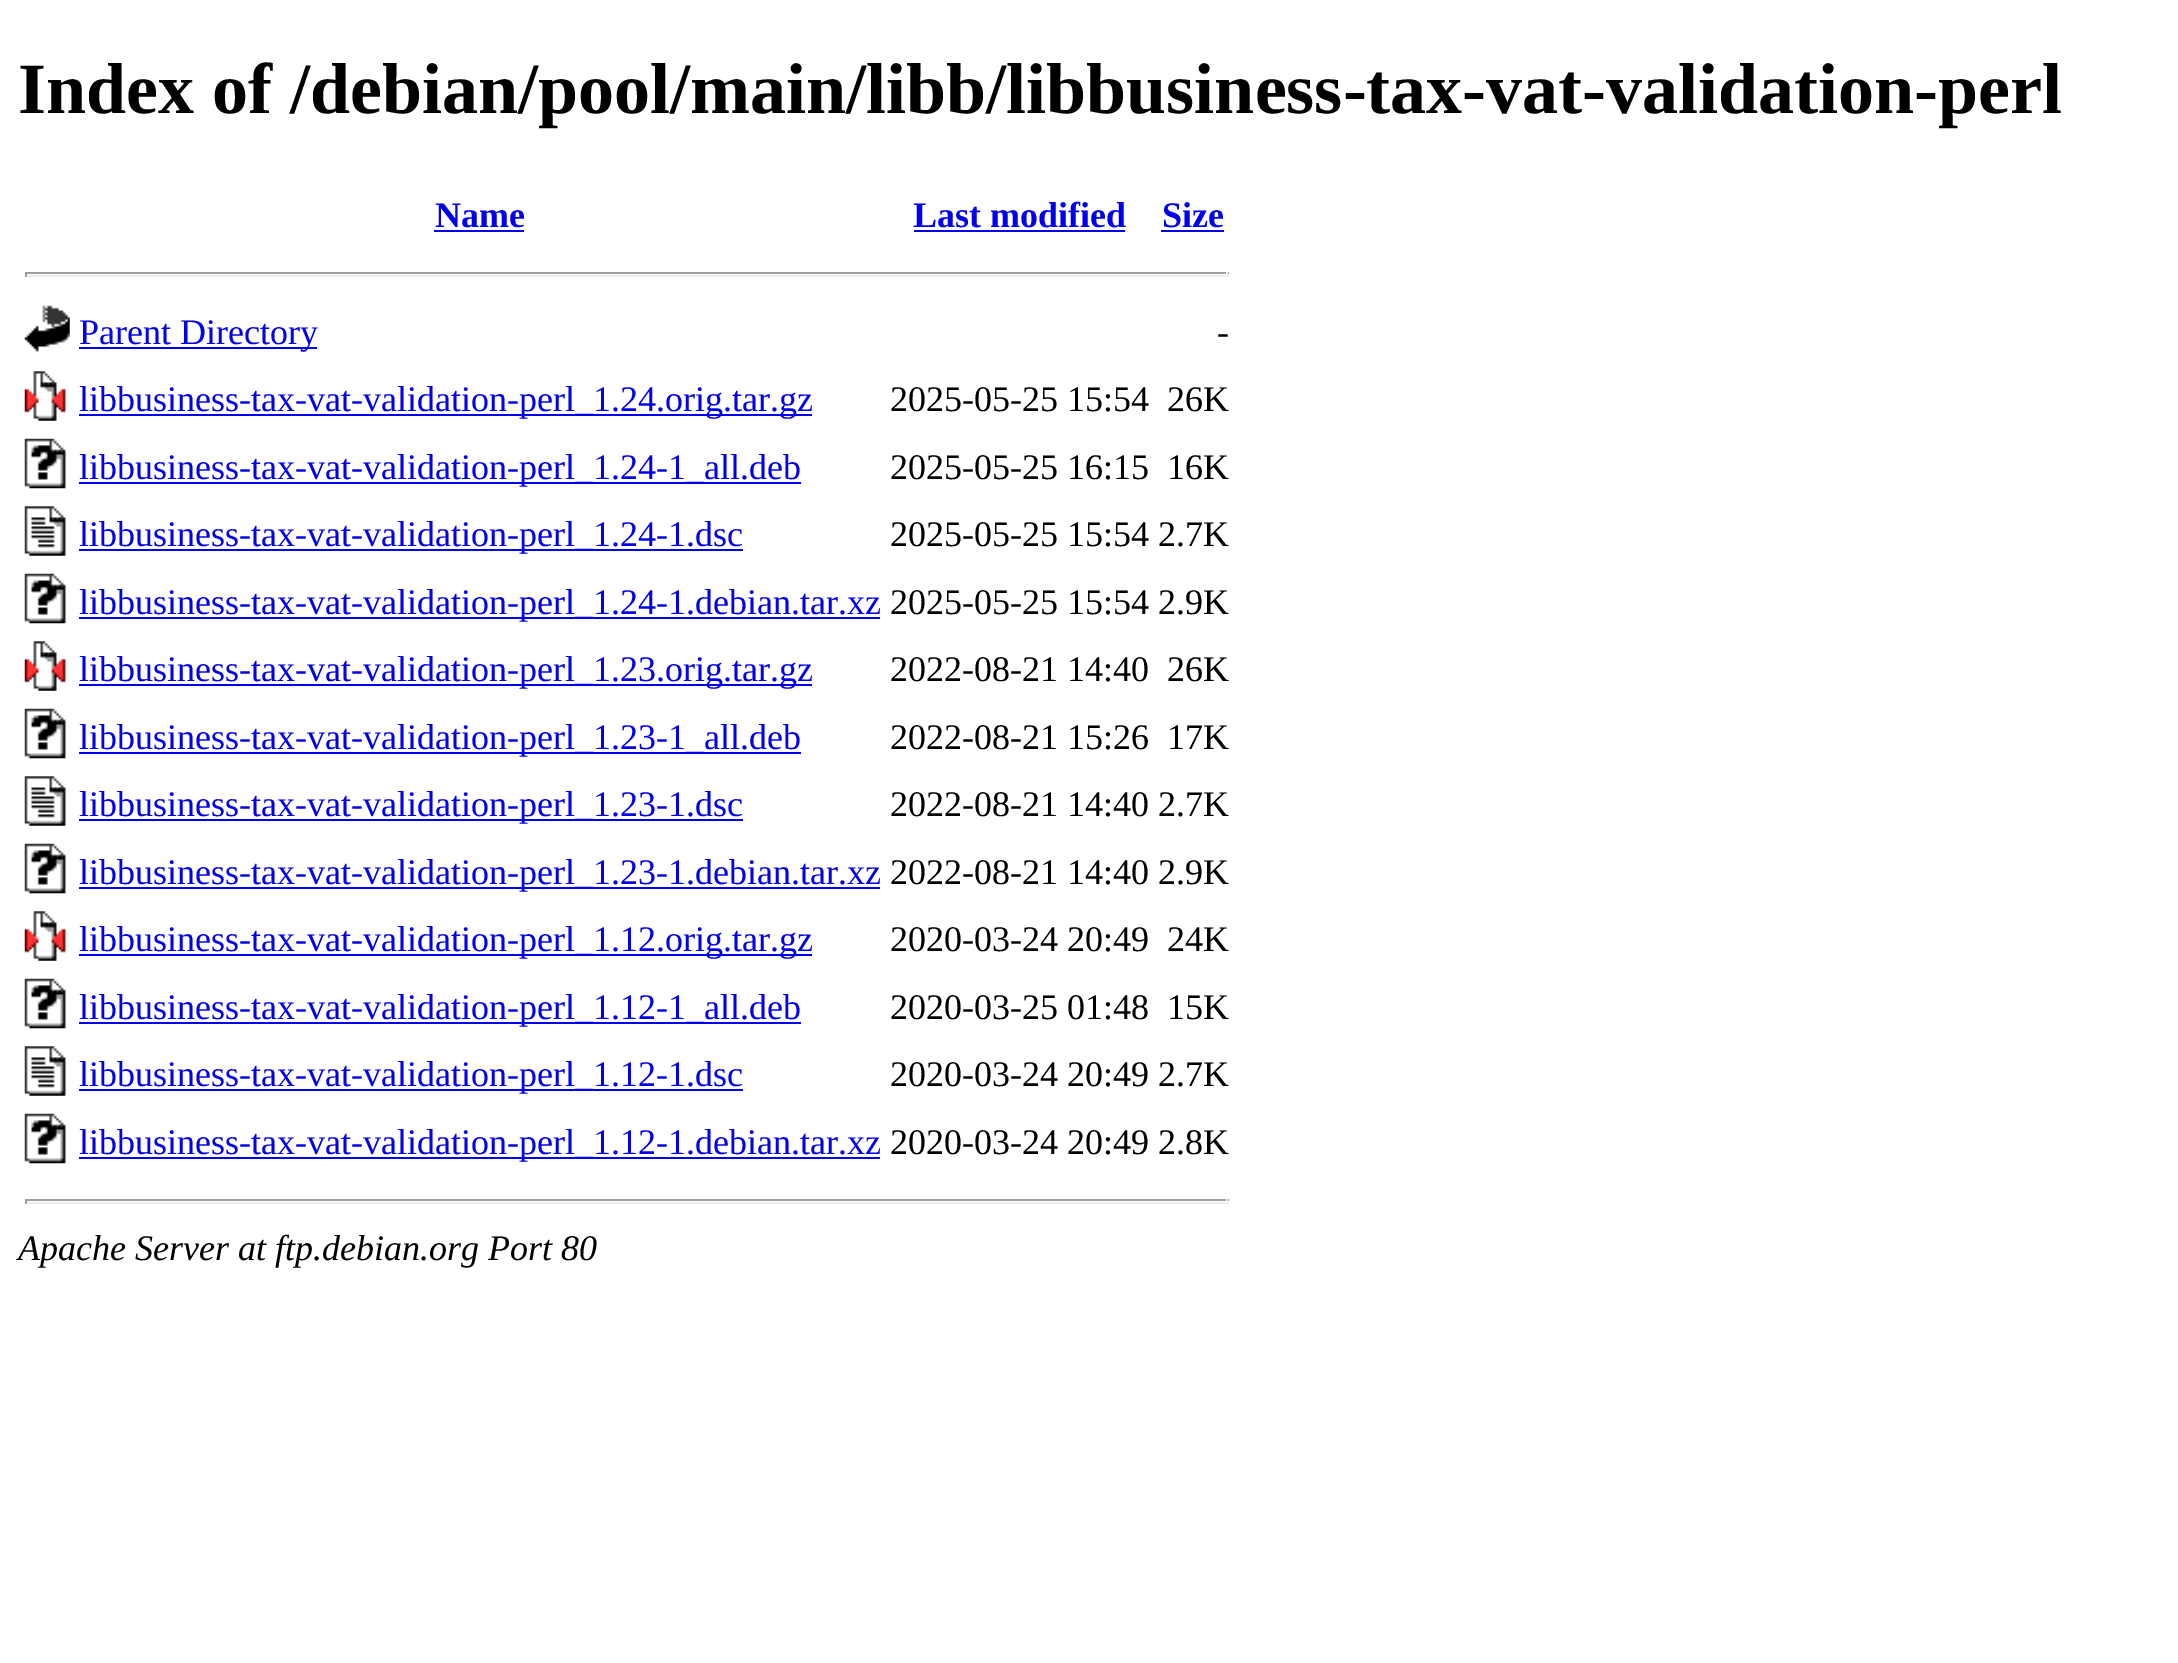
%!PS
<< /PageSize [2178 1663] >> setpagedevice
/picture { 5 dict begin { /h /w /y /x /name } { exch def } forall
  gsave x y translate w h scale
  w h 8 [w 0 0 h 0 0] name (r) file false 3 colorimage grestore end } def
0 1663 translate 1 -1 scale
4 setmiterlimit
1 setgray
0 0 2178 1663 rectfill
/LiberationSerif-Bold [72 0 0 -72 0 0] selectfont
0 setgray
18 113 moveto (Index of /debian/pool/main/libb/libbusiness-tax-vat-validation-perl) show
/LiberationSerif-Bold [36 0 0 -36 0 0] selectfont
0 0 0.933 setrgbcolor
435 227 moveto (Name) show
434 230 90 2 rectfill
913 227 moveto (Last modified) show
914 230 211 2 rectfill
1162 227 moveto (Size) show
1161 230 63 2 rectfill
0.624 setgray
25 272 1204 2 rectfill
0.933 setgray
1226 272 2 5 rectfill
25 275 1204 2 rectfill
0.624 setgray
25 272 2 5 rectfill
(img1.rgb) 24 305 46 47 picture
0 0 0.933 setrgbcolor
79 347 238 2 rectfill
/LiberationSerif-Regular [36 0 0 -36 0 0] selectfont
79 344 moveto (Parent Directory) show
0 setgray
1217 344 moveto (-) show
(img2.rgb) 24 371 42 50 picture
0 0 0.933 setrgbcolor
79 414 733 2 rectfill
79 411 moveto (libbusiness-tax-vat-validation-perl_1.24.orig.tar.gz) show
0 setgray
890 411 moveto (2025-05-25 15:54) show
1167 411 moveto (26K) show
(img3.rgb) 24 438 42 51 picture
0 0 0.933 setrgbcolor
79 482 722 2 rectfill
79 479 moveto (libbusiness-tax-vat-validation-perl_1.24-1_all.deb) show
0 setgray
890 479 moveto (2025-05-25 16:15) show
1167 479 moveto (16K) show
(img4.rgb) 24 506 42 50 picture
0 0 0.933 setrgbcolor
79 549 664 2 rectfill
79 546 moveto (libbusiness-tax-vat-validation-perl_1.24-1.dsc) show
0 setgray
890 546 moveto (2025-05-25 15:54 2.7K) show
(img5.rgb) 24 573 42 51 picture
0 0 0.933 setrgbcolor
79 617 801 2 rectfill
79 614 moveto (libbusiness-tax-vat-validation-perl_1.24-1.debian.tar.xz) show
0 setgray
890 614 moveto (2025-05-25 15:54 2.9K) show
(img2.rgb) 24 641 42 50 picture
0 0 0.933 setrgbcolor
79 684 733 2 rectfill
79 681 moveto (libbusiness-tax-vat-validation-perl_1.23.orig.tar.gz) show
0 setgray
890 681 moveto (2022-08-21 14:40) show
1167 681 moveto (26K) show
(img3.rgb) 24 708 42 51 picture
0 0 0.933 setrgbcolor
79 752 722 2 rectfill
79 749 moveto (libbusiness-tax-vat-validation-perl_1.23-1_all.deb) show
0 setgray
890 749 moveto (2022-08-21 15:26) show
1167 749 moveto (17K) show
(img6.rgb) 24 776 42 50 picture
0 0 0.933 setrgbcolor
79 819 664 2 rectfill
79 816 moveto (libbusiness-tax-vat-validation-perl_1.23-1.dsc) show
0 setgray
890 816 moveto (2022-08-21 14:40 2.7K) show
(img3.rgb) 24 843 42 51 picture
0 0 0.933 setrgbcolor
79 887 801 2 rectfill
79 884 moveto (libbusiness-tax-vat-validation-perl_1.23-1.debian.tar.xz) show
0 setgray
890 884 moveto (2022-08-21 14:40 2.9K) show
(img2.rgb) 24 911 42 50 picture
0 0 0.933 setrgbcolor
79 954 733 2 rectfill
79 951 moveto (libbusiness-tax-vat-validation-perl_1.12.orig.tar.gz) show
0 setgray
890 951 moveto (2020-03-24 20:49) show
1167 951 moveto (24K) show
(img3.rgb) 24 978 42 51 picture
0 0 0.933 setrgbcolor
79 1022 722 2 rectfill
79 1019 moveto (libbusiness-tax-vat-validation-perl_1.12-1_all.deb) show
0 setgray
890 1019 moveto (2020-03-25 01:48) show
1167 1019 moveto (15K) show
(img4.rgb) 24 1046 42 50 picture
0 0 0.933 setrgbcolor
79 1089 664 2 rectfill
79 1086 moveto (libbusiness-tax-vat-validation-perl_1.12-1.dsc) show
0 setgray
890 1086 moveto (2020-03-24 20:49 2.7K) show
(img3.rgb) 24 1113 42 51 picture
0 0 0.933 setrgbcolor
79 1157 801 2 rectfill
79 1154 moveto (libbusiness-tax-vat-validation-perl_1.12-1.debian.tar.xz) show
0 setgray
890 1154 moveto (2020-03-24 20:49 2.8K) show
0.624 setgray
25 1199 1204 2 rectfill
0.933 setgray
1226 1199 2 5 rectfill
25 1202 1204 2 rectfill
0.624 setgray
25 1199 2 5 rectfill
/LiberationSerif-Italic [36 0 0 -36 0 0] selectfont
0 setgray
18 1260 moveto (Apache Server at ftp.debian.org Port 80) show
showpage
